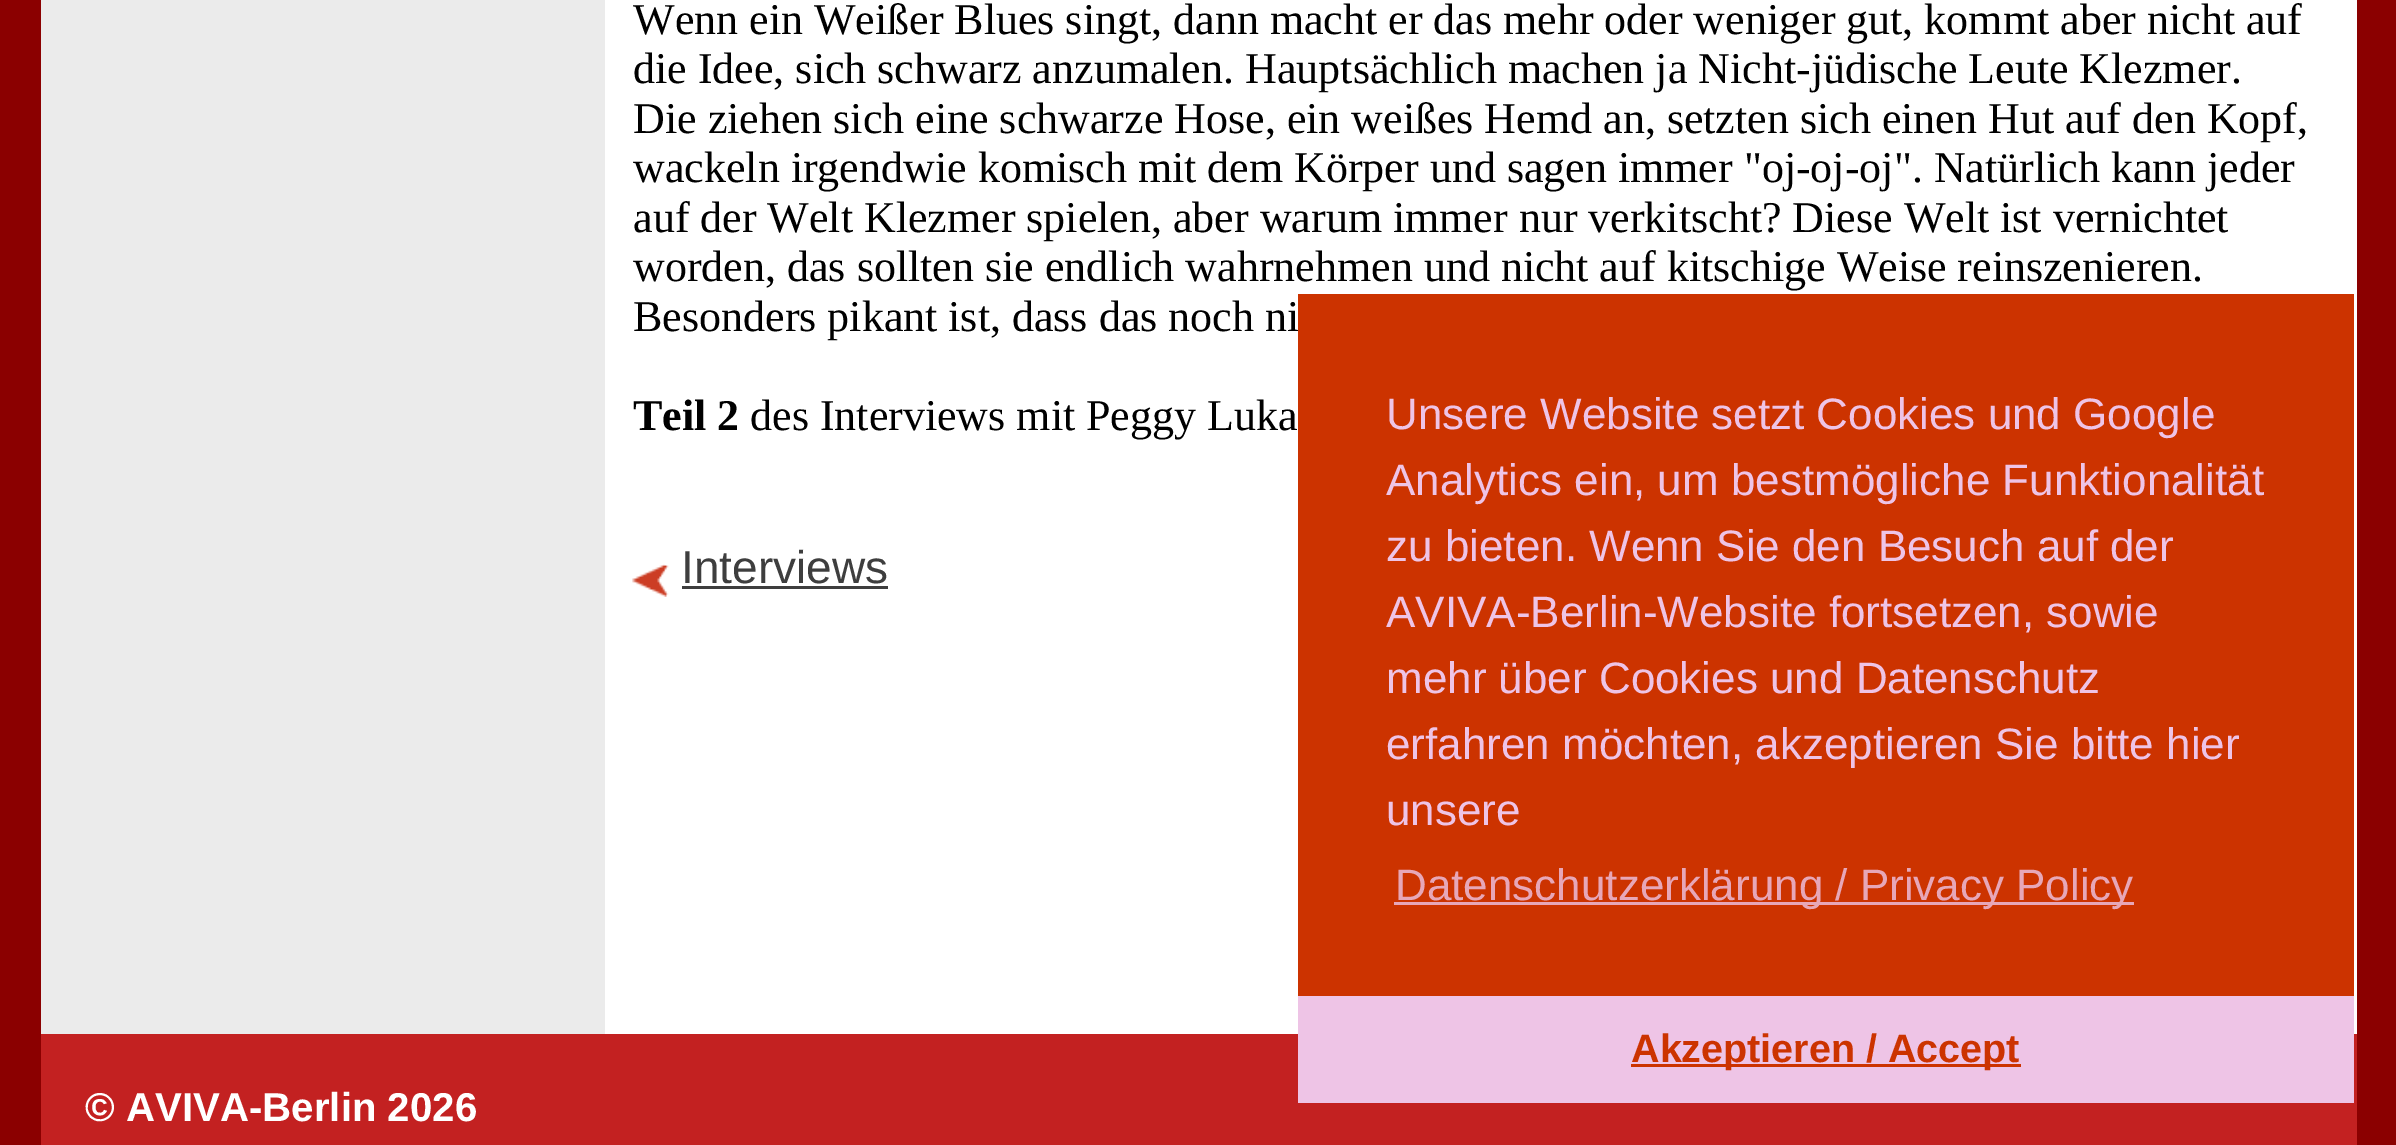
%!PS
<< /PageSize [2396 1145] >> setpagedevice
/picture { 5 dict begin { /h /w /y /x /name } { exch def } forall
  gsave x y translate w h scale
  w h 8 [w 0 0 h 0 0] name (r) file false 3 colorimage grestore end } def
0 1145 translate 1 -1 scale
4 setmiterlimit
0.545 0 0 setrgbcolor
0 0 2396 1145 rectfill
0.922 setgray
41 0 564 1034 rectfill
1 setgray
605 0 1752 1034 rectfill
/LiberationSerif-Regular [44 0 0 -44 0 0] selectfont
0 setgray
633 34 moveto (Wenn ein Weißer Blues singt, dann macht er das mehr oder weniger gut, kommt aber nicht auf) show
633 83 moveto (die Idee, sich schwarz anzumalen. Hauptsächlich machen ja Nicht-jüdische Leute Klezmer.) show
633 133 moveto (Die ziehen sich eine schwarze Hose, ein weißes Hemd an, setzten sich einen Hut auf den Kopf,) show
633 182 moveto (wackeln irgendwie komisch mit dem Körper und sagen immer "oj-oj-oj". Natürlich kann jeder) show
633 232 moveto (auf der Welt Klezmer spielen, aber warum immer nur verkitscht? Diese Welt ist vernichtet) show
633 281 moveto (worden, das sollten sie endlich wahrnehmen und nicht auf kitschige Weise reinszenieren.) show
633 331 moveto (Besonders pikant ist, dass das noch ni) show
/LiberationSerif-Bold [44 0 0 -44 0 0] selectfont
633 430 moveto (Teil 2) show
/LiberationSerif-Regular [44 0 0 -44 0 0] selectfont
750 430 moveto (des Interviews mit Peggy Luka) show
(img1.rgb) 632 564 37 33 picture
/LiberationSans-Regular [46 0 0 -46 0 0] selectfont
0.243 setgray
681 583 moveto (Interviews) show
682 586 206 3 rectfill
0.765 0.129 0.129 setrgbcolor
41 1034 2316 111 rectfill
/LiberationSans-Bold [40.25 0 0 -40.25 0 0] selectfont
1 setgray
85 1121 moveto (© AVIVA-Berlin 2026) show
0.8 0.2 0 setrgbcolor
1298 294 1056 702 rectfill
/LiberationSans-Regular [44 0 0 -44 0 0] selectfont
0.933 0.769 0.902 setrgbcolor
1386 429 moveto (Unsere Website setzt Cookies und Google) show
1386 495 moveto (Analytics ein, um bestmögliche Funktionalität) show
1386 561 moveto (zu bieten. Wenn Sie den Besuch auf der) show
1386 627 moveto (AVIVA-Berlin-Website fortsetzen, sowie) show
1386 693 moveto (mehr über Cookies und Datenschutz) show
1386 759 moveto (erfahren möchten, akzeptieren Sie bitte hier) show
1386 825 moveto (unsere) show
0.906 0.655 0.722 setrgbcolor
1394 902 740 3 rectfill
1395 900 moveto (Datenschutzerklärung / Privacy Policy) show
0.933 0.769 0.902 setrgbcolor
1298 996 1056 107 rectfill
0.8 0.2 0 setrgbcolor
1631 1064 390 3 rectfill
/LiberationSans-Bold [39.5 0 0 -39.5 0 0] selectfont
1631 1062 moveto (Akzeptieren / Accept) show
showpage
